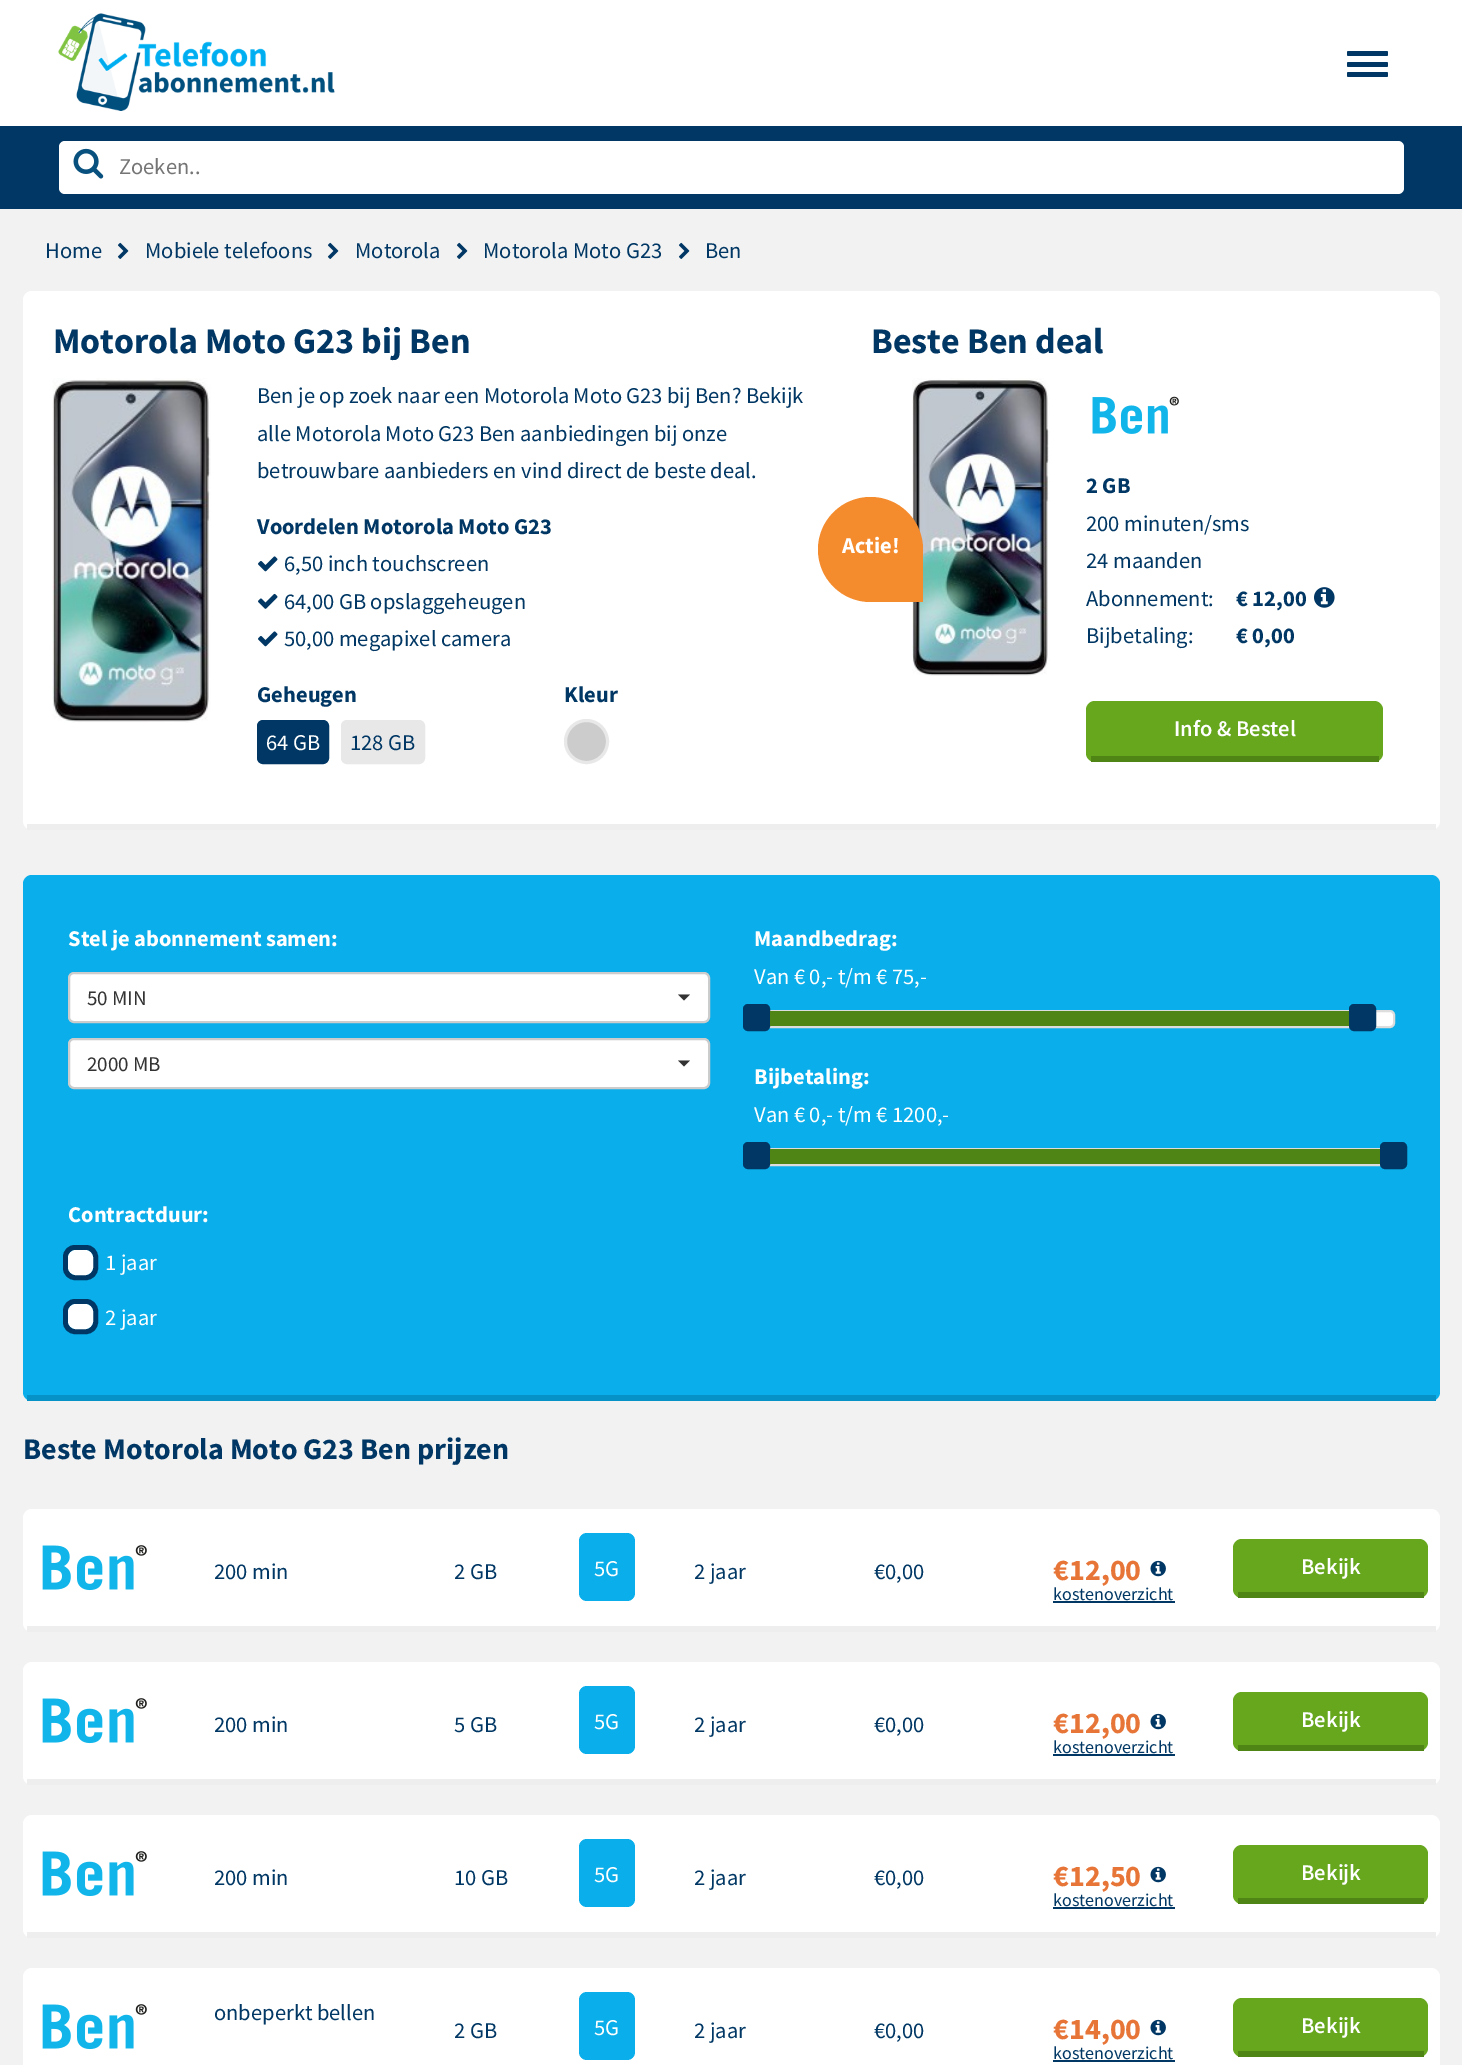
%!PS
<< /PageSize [1462 2065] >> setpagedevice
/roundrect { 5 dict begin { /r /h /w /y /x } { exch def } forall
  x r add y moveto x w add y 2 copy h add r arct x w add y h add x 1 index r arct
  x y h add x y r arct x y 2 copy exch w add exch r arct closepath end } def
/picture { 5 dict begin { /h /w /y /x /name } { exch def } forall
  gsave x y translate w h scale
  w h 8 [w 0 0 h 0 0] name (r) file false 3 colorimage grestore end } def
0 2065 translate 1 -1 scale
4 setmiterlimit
1 setgray
0 0 1462 2065 rectfill
(img1.rgb) 58 13 277 98 picture
0 0.216 0.392 setrgbcolor
1347 51 41 5 1.5 roundrect fill
1347 62 41 5 1.5 roundrect fill
1347 72 41 5 1.5 roundrect fill
0 126 1462 83 rectfill
1 setgray
59 141 1345 53 6 roundrect fill
(img2.rgb) 73 148 31 31 picture
/SourceSansPro-Regular [22.5 0 0 -22.5 0 0] selectfont
0.459 setgray
119 174 moveto (Zoeken..) show
0.949 setgray
0 209 1462 1856 rectfill
0 0.216 0.392 setrgbcolor
45 258 moveto (Home) show
(img3.rgb) 117 242 12 17 picture
145 258 moveto (Mobiele telefoons) show
(img3.rgb) 327 242 12 17 picture
355 258 moveto (Motorola) show
(img3.rgb) 456 242 12 17 picture
483 258 moveto (Motorola Moto G23) show
(img3.rgb) 678 242 12 17 picture
705 258 moveto (Ben) show
1 setgray
23 291 1417 539 9 roundrect fill
0.933 setgray
27 824 1409 6 rectfill
/SourceSansPro-Bold [36 0 0 -36 0 0] selectfont
0 0.216 0.392 setrgbcolor
53 353 moveto (Motorola Moto G23 bij Ben) show
(img4.rgb) 52 378 159 345 picture
/SourceSansPro-Regular [22.5 0 0 -22.5 0 0] selectfont
257 403 moveto (Ben je op zoek naar een Motorola Moto G23 bij Ben? Bekijk) show
257 441 moveto (alle Motorola Moto G23 Ben aanbiedingen bij onze) show
257 478 moveto (betrouwbare aanbieders en vind direct de beste deal.) show
/SourceSansPro-Bold [22.5 0 0 -22.5 0 0] selectfont
257 534 moveto (Voordelen Motorola Moto G23) show
(img5.rgb) 258 556 20 16 picture
/SourceSansPro-Regular [22.5 0 0 -22.5 0 0] selectfont
284 571 moveto (6,50 inch touchscreen) show
(img6.rgb) 258 593 20 16 picture
284 609 moveto (64,00 GB opslaggeheugen) show
(img5.rgb) 258 631 20 16 picture
284 646 moveto (50,00 megapixel camera) show
/SourceSansPro-Bold [22.5 0 0 -22.5 0 0] selectfont
257 702 moveto (Geheugen) show
258.5 721.5 69 41 4.5 roundrect gsave fill grestore
3 setlinewidth
stroke
/SourceSansPro-Regular [22.5 0 0 -22.5 0 0] selectfont
1 setgray
266 750 moveto (64 GB) show
0.91 setgray
342.5 721.5 81 41 4.5 roundrect gsave fill grestore
stroke
0 0.216 0.392 setrgbcolor
350 750 moveto (128 GB) show
/SourceSansPro-Bold [22.5 0 0 -22.5 0 0] selectfont
564 702 moveto (Kleur) show
0.8 setgray
newpath 586.5 741.5 21 0 360 arc closepath gsave fill grestore
0.91 setgray
stroke
/SourceSansPro-Bold [36 0 0 -36 0 0] selectfont
0 0.216 0.392 setrgbcolor
871 353 moveto (Beste Ben deal) show
(img7.rgb) 912 378 138 298 picture
0.957 0.549 0.18 setrgbcolor
newpath 870.5 497 moveto 899.5 497 923 520.5 923 549.5 curveto 923 602 lineto 870.5 602 lineto 841.5 602 818 578.5 818 549.5 curveto 818 520.5 841.5 497 870.5 497 curveto closepath fill
/SourceSansPro-Bold [22.5 0 0 -22.5 0 0] selectfont
1 setgray
842 553 moveto (Actie!) show
(img8.rgb) 1092 396 87 38 picture
0 0.216 0.392 setrgbcolor
1086 493 moveto (2 GB) show
/SourceSansPro-Regular [22.5 0 0 -22.5 0 0] selectfont
1086 531 moveto (200 minuten/sms) show
1086 568 moveto (24 maanden) show
1086 606 moveto (Abonnement:) show
/SourceSansPro-Bold [22.5 0 0 -22.5 0 0] selectfont
1236 606 moveto (€ 12,00) show
(img9.rgb) 1314 587 21 21 picture
/SourceSansPro-Regular [22.5 0 0 -22.5 0 0] selectfont
1086 643 moveto (Bijbetaling:) show
/SourceSansPro-Bold [22.5 0 0 -22.5 0 0] selectfont
1236 643 moveto (€ 0,00) show
0.4 0.655 0.118 setrgbcolor
1086 701 297 61 9 roundrect fill
0.31 0.522 0.082 setrgbcolor
1091 756 288 6 rectfill
/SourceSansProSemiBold-SemiBold [22.5 0 0 -22.5 0 0] selectfont
1 setgray
1174 736 moveto (Info & Bestel) show
0.035 0.682 0.918 setrgbcolor
23 875 1417 526 9 roundrect fill
0.024 0.573 0.776 setrgbcolor
27 1395 1409 6 rectfill
/SourceSansPro-Bold [22.5 0 0 -22.5 0 0] selectfont
1 setgray
68 946 moveto (Stel je abonnement samen:) show
69 973 640 49 5 roundrect gsave fill grestore
0.8 setgray
2 setlinewidth
stroke
/SourceSansPro-Regular [21 0 0 -21 0 0] selectfont
0.2 setgray
87 1005 moveto (50 MIN) show
newpath 678 994.5 moveto 690 994.5 lineto 684 1000.5 lineto closepath fill
1 setgray
69 1039 640 49 5 roundrect gsave fill grestore
0.8 setgray
stroke
0.2 setgray
87 1071 moveto (2000 MB) show
newpath 678 1060.5 moveto 690 1060.5 lineto 684 1066.5 lineto closepath fill
/SourceSansPro-Bold [22.5 0 0 -22.5 0 0] selectfont
1 setgray
754 946 moveto (Maandbedrag:) show
/SourceSansPro-Regular [22.5 0 0 -22.5 0 0] selectfont
754 984 moveto (Van € 0,- t/m € 75,-) show
756 1011 638 16 4 roundrect gsave fill grestore
0.867 setgray
stroke
0 0.216 0.392 setrgbcolor
744 1005 25 25 4 roundrect gsave fill grestore
stroke
0.31 0.522 0.082 setrgbcolor
770 1011 579 15 rectfill
0 0.216 0.392 setrgbcolor
1350 1005 25 25 4 roundrect gsave fill grestore
stroke
/SourceSansPro-Bold [22.5 0 0 -22.5 0 0] selectfont
1 setgray
754 1084 moveto (Bijbetaling:) show
/SourceSansPro-Regular [22.5 0 0 -22.5 0 0] selectfont
754 1122 moveto (Van € 0,- t/m € 1200,-) show
0.867 setgray
756 1149 638 16 rectstroke
0 0.216 0.392 setrgbcolor
744 1143 25 25 4 roundrect gsave fill grestore
stroke
0.31 0.522 0.082 setrgbcolor
770 1149 610 15 rectfill
0 0.216 0.392 setrgbcolor
1381 1143 25 25 4 roundrect gsave fill grestore
stroke
/SourceSansPro-Bold [22.5 0 0 -22.5 0 0] selectfont
1 setgray
68 1222 moveto (Contractduur:) show
0 0.216 0.392 setrgbcolor
5 setlinewidth
65.5 1247.5 30 30 9.5 roundrect stroke
1 setgray
70.5 1252.5 20 20 5.5 roundrect gsave fill grestore
stroke
/SourceSansPro-Regular [22.5 0 0 -22.5 0 0] selectfont
105 1270 moveto (1 jaar) show
0 0.216 0.392 setrgbcolor
65.5 1301.5 30 30 9.5 roundrect stroke
1 setgray
70.5 1306.5 20 20 5.5 roundrect gsave fill grestore
stroke
105 1325 moveto (2 jaar) show
/SourceSansPro-Bold [30 0 0 -30 0 0] selectfont
0 0.216 0.392 setrgbcolor
23 1459 moveto (Beste Motorola Moto G23 Ben prijzen) show
1 setgray
23 1509 1417 123 9 roundrect fill
0.933 setgray
27 1626 1409 6 rectfill
(img10.rgb) 42 1545 105 46 picture
/SourceSansPro-Regular [22.5 0 0 -22.5 0 0] selectfont
0 0.216 0.392 setrgbcolor
214 1579 moveto (200 min) show
454 1579 moveto (2 GB) show
0.035 0.682 0.918 setrgbcolor
579 1533 56 68 8 roundrect fill
1 setgray
594 1576 moveto (5G) show
0 0.216 0.392 setrgbcolor
694 1579 moveto (2 jaar) show
874 1579 moveto (€0,00) show
/SourceSansPro-Bold [30 0 0 -30 0 0] selectfont
0.906 0.459 0.22 setrgbcolor
1053 1580 moveto (€12,00) show
(img11.rgb) 1150 1560 16 17 picture
/SourceSansPro-Regular [18 0 0 -18 0 0] selectfont
0 0.216 0.392 setrgbcolor
1053 1600 moveto (kostenoverzicht) show
1053 1601 122 2 rectfill
0.4 0.655 0.118 setrgbcolor
1233 1539 195 59 9 roundrect fill
0.31 0.522 0.082 setrgbcolor
1238 1592 186 6 rectfill
/SourceSansProSemiBold-SemiBold [22.5 0 0 -22.5 0 0] selectfont
1 setgray
1301 1574 moveto (Bekijk) show
23 1662 1417 123 9 roundrect fill
0.933 setgray
27 1779 1409 6 rectfill
(img10.rgb) 42 1698 105 46 picture
/SourceSansPro-Regular [22.5 0 0 -22.5 0 0] selectfont
0 0.216 0.392 setrgbcolor
214 1732 moveto (200 min) show
454 1732 moveto (5 GB) show
0.035 0.682 0.918 setrgbcolor
579 1686 56 68 8 roundrect fill
1 setgray
594 1729 moveto (5G) show
0 0.216 0.392 setrgbcolor
694 1732 moveto (2 jaar) show
874 1732 moveto (€0,00) show
/SourceSansPro-Bold [30 0 0 -30 0 0] selectfont
0.906 0.459 0.22 setrgbcolor
1053 1733 moveto (€12,00) show
(img11.rgb) 1150 1713 16 17 picture
/SourceSansPro-Regular [18 0 0 -18 0 0] selectfont
0 0.216 0.392 setrgbcolor
1053 1753 moveto (kostenoverzicht) show
1053 1754 122 2 rectfill
0.4 0.655 0.118 setrgbcolor
1233 1692 195 59 9 roundrect fill
0.31 0.522 0.082 setrgbcolor
1238 1745 186 6 rectfill
/SourceSansProSemiBold-SemiBold [22.5 0 0 -22.5 0 0] selectfont
1 setgray
1301 1727 moveto (Bekijk) show
23 1815 1417 123 9 roundrect fill
0.933 setgray
27 1932 1409 6 rectfill
(img10.rgb) 42 1851 105 46 picture
/SourceSansPro-Regular [22.5 0 0 -22.5 0 0] selectfont
0 0.216 0.392 setrgbcolor
214 1885 moveto (200 min) show
454 1885 moveto (10 GB) show
0.035 0.682 0.918 setrgbcolor
579 1839 56 68 8 roundrect fill
1 setgray
594 1882 moveto (5G) show
0 0.216 0.392 setrgbcolor
694 1885 moveto (2 jaar) show
874 1885 moveto (€0,00) show
/SourceSansPro-Bold [30 0 0 -30 0 0] selectfont
0.906 0.459 0.22 setrgbcolor
1053 1886 moveto (€12,50) show
(img11.rgb) 1150 1866 16 17 picture
/SourceSansPro-Regular [18 0 0 -18 0 0] selectfont
0 0.216 0.392 setrgbcolor
1053 1906 moveto (kostenoverzicht) show
1053 1907 122 2 rectfill
0.4 0.655 0.118 setrgbcolor
1233 1845 195 59 9 roundrect fill
0.31 0.522 0.082 setrgbcolor
1238 1898 186 6 rectfill
/SourceSansProSemiBold-SemiBold [22.5 0 0 -22.5 0 0] selectfont
1 setgray
1301 1880 moveto (Bekijk) show
23 1968 1417 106 9 roundrect fill
(img10.rgb) 42 2004 105 46 picture
/SourceSansPro-Regular [22.5 0 0 -22.5 0 0] selectfont
0 0.216 0.392 setrgbcolor
214 2020 moveto (onbeperkt bellen) show
454 2038 moveto (2 GB) show
0.035 0.682 0.918 setrgbcolor
579 1992 56 68 8 roundrect fill
1 setgray
594 2035 moveto (5G) show
0 0.216 0.392 setrgbcolor
694 2038 moveto (2 jaar) show
874 2038 moveto (€0,00) show
/SourceSansPro-Bold [30 0 0 -30 0 0] selectfont
0.906 0.459 0.22 setrgbcolor
1053 2039 moveto (€14,00) show
(img11.rgb) 1150 2019 16 17 picture
/SourceSansPro-Regular [18 0 0 -18 0 0] selectfont
0 0.216 0.392 setrgbcolor
1053 2059 moveto (kostenoverzicht) show
1053 2060 122 2 rectfill
0.4 0.655 0.118 setrgbcolor
1233 1998 195 59 9 roundrect fill
0.31 0.522 0.082 setrgbcolor
1238 2051 186 6 rectfill
/SourceSansProSemiBold-SemiBold [22.5 0 0 -22.5 0 0] selectfont
1 setgray
1301 2033 moveto (Bekijk) show
showpage
